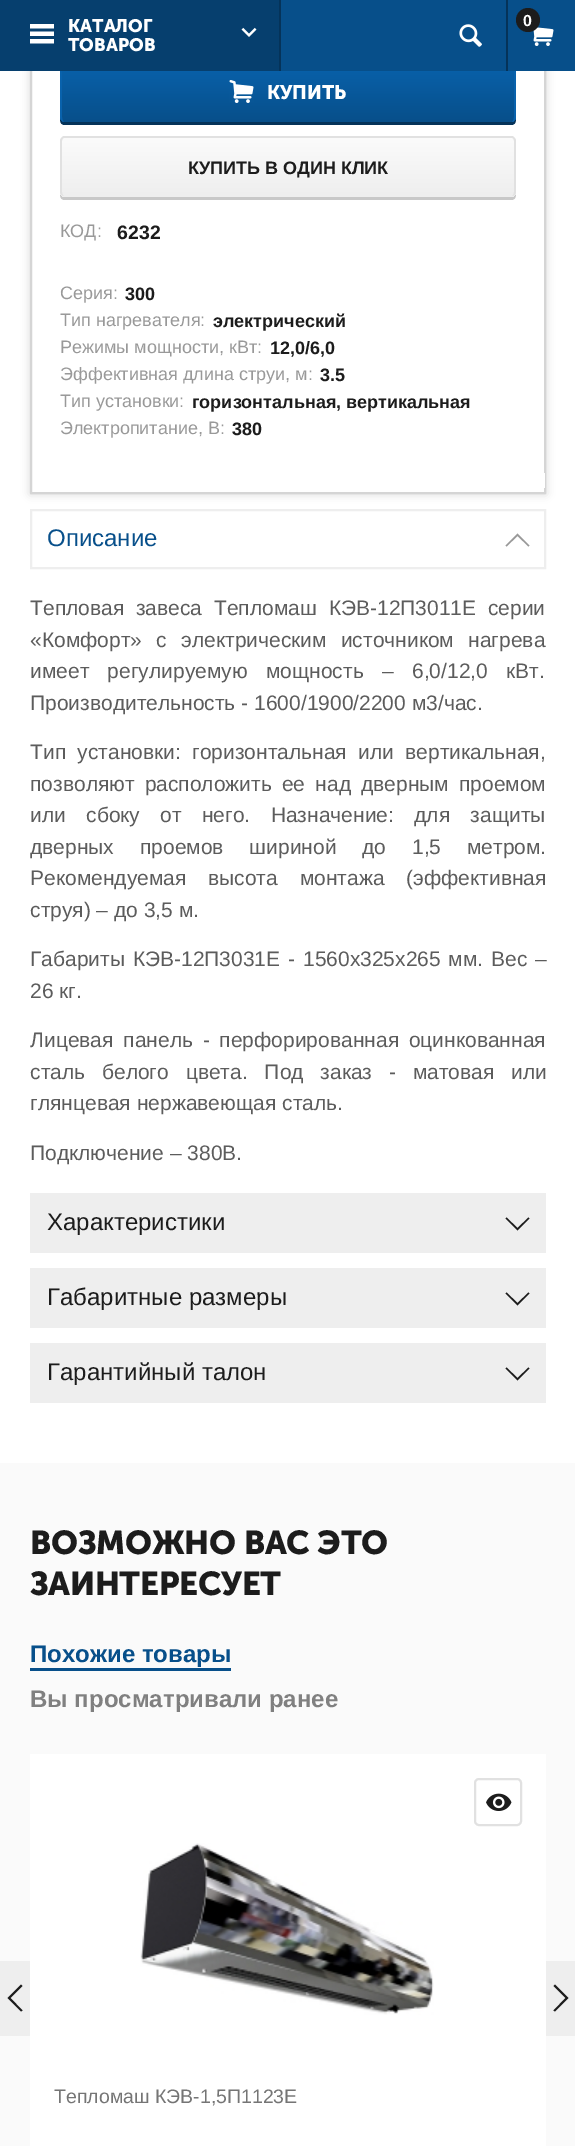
%!PS
<< /PageSize [575 2146] /PageUsesTransparency true >> setpagedevice
/alpha { dup .setfillconstantalpha .setstrokeconstantalpha } def
/roundrect { 5 dict begin { /r /h /w /y /x } { exch def } forall
  x r add y moveto x w add y 2 copy h add r arct x w add y h add x 1 index r arct
  x y h add x y r arct x y 2 copy exch w add exch r arct closepath end } def
/shadow { 12 dict begin { /a /b /q /h /w /y /x } { exch def } forall gsave /was 0 def
  9 -2 -9 { dup b mul 4 div /e exch def 1 sub .425 mul 2.718 exch exp 1 add a .99 .min exch div /now exch def
    1 1 now sub 1 was sub div sub alpha /was now def
    w h .min e 2 mul add 0 gt { x e sub y e sub w e 2 mul add h e 2 mul add
      q e add b .6 mul add w h .min 2 div e add .min 0 .max roundrect fill } if } for grestore end } def
/picture { 5 dict begin { /h /w /y /x /name } { exch def } forall
  gsave x y translate w h scale
  w h 8 [w 0 0 h 0 0] name (r) file false 3 colorimage grestore end } def
0 .pushpdf14devicefilter
0 2146 translate 1 -1 scale
4 setmiterlimit
1 setgray
0 0 575 2146 rectfill
gsave
newpath 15 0 moveto 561 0 lineto 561 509 lineto 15 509 lineto closepath 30 -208 moveto 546 -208 lineto 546 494 lineto 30 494 lineto closepath eoclip newpath
0.835 setgray
30 -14 516 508 0 4.5 1 shadow
grestore
0.835 setgray
2 setlinewidth
31 -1 514 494 rectstroke
0.02 0.2 0.349 setrgbcolor
newpath 60 117 moveto 60 121 60 125 65 125 curveto 511 125 lineto 516 125 516 121 516 117 curveto 516 119 514 122 512 122 curveto 64 122 lineto 62 122 60 119 60 117 curveto closepath fill
gsave
60 62 456 60 5 roundrect clip newpath
gsave newpath 60 63 moveto 516 63 lineto 516 117 lineto 516 120 514 122 511 122 curveto 65 122 lineto 62 122 60 120 60 117 curveto closepath clip newpath
<< /ShadingType 2 /ColorSpace /DeviceRGB /Coords [288 63 288 122] /Extend [true true] /Function << /FunctionType 2 /Domain [0 1] /C0 [0.035 0.384 0.675] /C1 [0.027 0.31 0.541] /N 1 >> >> shfill grestore
grestore
0.035 0.384 0.675 setrgbcolor
newpath 64 62 moveto 512 62 lineto 514 62 516 64 516 66 curveto 516 117 lineto 516 119 514 122 512 122 curveto 64 122 lineto 62 122 60 119 60 117 curveto 60 66 lineto 60 64 62 62 64 62 curveto closepath 64 63 moveto 512 63 lineto 513 63 514 64 514 66 curveto 514 117 lineto 514 119 513 122 512 122 curveto 64 122 lineto 63 122 62 119 62 117 curveto 62 66 lineto 62 64 63 63 64 63 curveto closepath eofill
0.027 0.31 0.541 setrgbcolor
281 0 294 71 rectfill
0.024 0.247 0.431 setrgbcolor
0 0 279 71 rectfill
0.02 0.2 0.349 setrgbcolor
279 0 2 71 rectfill
(img1.rgb) 30 24 24 20 picture
/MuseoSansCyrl-Bold [18 0 0 -18 0 0] selectfont
1 setgray
68 32 moveto (КАТАЛОГ) show
(img2.rgb) 241 27 16 10 picture
68 51 moveto (ТОВАРОВ) show
0.02 0.2 0.349 setrgbcolor
506 0 2 71 rectfill
(img3.rgb) 533 27 21 19 picture
0.11 setgray
newpath 528 20 12 0 360 arc closepath fill
/LiberationSans-Bold [16 0 0 -16 0 0] selectfont
1 setgray
523 26 moveto (0) show
(img4.rgb) 459 24 23 23 picture
(img5.rgb) 229 80 25 23 picture
/MuseoSansCyrl-Bold [19.5 0 0 -19.5 0 0] selectfont
267 99 moveto (КУПИТЬ) show
0.784 setgray
newpath 60 192 moveto 60 196 60 200 65 200 curveto 511 200 lineto 516 200 516 196 516 192 curveto 516 194 514 196 512 196 curveto 64 196 lineto 62 196 60 194 60 192 curveto closepath fill
0.933 setgray
60 137 456 60 5 roundrect fill
gsave
60 137 456 60 5 roundrect clip newpath
gsave newpath 60 138 moveto 516 138 lineto 516 192 lineto 516 195 514 197 511 197 curveto 65 197 lineto 62 197 60 195 60 192 curveto closepath clip newpath
<< /ShadingType 2 /ColorSpace /DeviceRGB /Coords [288 138 288 197] /Extend [true true] /Function << /FunctionType 2 /Domain [0 1] /C0 [0.984 0.984 0.984] /C1 [0.933 0.933 0.933] /N 1 >> >> shfill grestore
grestore
0.882 setgray
newpath 64 136 moveto 512 136 lineto 514 136 516 139 516 141 curveto 516 192 lineto 516 194 514 196 512 196 curveto 64 196 lineto 62 196 60 194 60 192 curveto 60 141 lineto 60 139 62 136 64 136 curveto closepath 64 138 moveto 512 138 lineto 513 138 514 139 514 141 curveto 514 192 lineto 514 194 513 196 512 196 curveto 64 196 lineto 63 196 62 194 62 192 curveto 62 141 lineto 62 139 63 138 64 138 curveto closepath eofill
/LiberationSans-Bold [18 0 0 -18 0 0] selectfont
0.11 setgray
188 174 moveto (КУПИТЬ В ОДИН КЛИК) show
/LiberationSans-Regular [18 0 0 -18 0 0] selectfont
0.6 setgray
60 237 moveto (КОД:) show
/LiberationSans-Bold [19.5 0 0 -19.5 0 0] selectfont
0.11 setgray
117 239 moveto (6232) show
/LiberationSans-Regular [18 0 0 -18 0 0] selectfont
0.6 setgray
60 299 moveto (Серия:) show
/LiberationSans-Bold [18 0 0 -18 0 0] selectfont
0.11 setgray
125 300 moveto (300) show
/LiberationSans-Regular [18 0 0 -18 0 0] selectfont
0.6 setgray
60 326 moveto (Тип нагревателя:) show
/LiberationSans-Bold [18 0 0 -18 0 0] selectfont
0.11 setgray
213 327 moveto (электрический) show
/LiberationSans-Regular [18 0 0 -18 0 0] selectfont
0.6 setgray
60 353 moveto (Режимы мощности, кВт:) show
/LiberationSans-Bold [18 0 0 -18 0 0] selectfont
0.11 setgray
270 354 moveto (12,0/6,0) show
/LiberationSans-Regular [18 0 0 -18 0 0] selectfont
0.6 setgray
60 380 moveto (Эффективная длина струи, м:) show
/LiberationSans-Bold [18 0 0 -18 0 0] selectfont
0.11 setgray
320 381 moveto (3.5) show
/LiberationSans-Regular [18 0 0 -18 0 0] selectfont
0.6 setgray
60 407 moveto (Тип установки:) show
/LiberationSans-Bold [18 0 0 -18 0 0] selectfont
0.11 setgray
192 408 moveto (горизонтальная, вертикальная) show
/LiberationSans-Regular [18 0 0 -18 0 0] selectfont
0.6 setgray
60 434 moveto (Электропитание, В:) show
/LiberationSans-Bold [18 0 0 -18 0 0] selectfont
0.11 setgray
232 435 moveto (380) show
1 setgray
544 473 1 15 rectfill
0.933 setgray
31 510 514 58 rectstroke
/LiberationSans-Regular [24 0 0 -24 0 0] selectfont
0.027 0.31 0.541 setrgbcolor
47 546 moveto (Описание) show
0.6 setgray
newpath 517.5 533.5 moveto 529.5 545.5 lineto 528.5 546.5 lineto 517.5 536 lineto 506.5 546.5 lineto 505.5 545.5 lineto closepath fill
/LiberationSans-Regular [21 0 0 -21 0 0] selectfont
0.361 setgray
30 615 moveto 6 0 32 (Тепловая завеса Тепломаш КЭВ-12П3011Е серии) widthshow
30 647 moveto 8.5 0 32 («Комфорт» с электрическим источником нагрева) widthshow
30 678 moveto 12.5 0 32 (имеет регулируемую мощность – 6,0/12,0 кВт.) widthshow
30 710 moveto (Производительность - 1600/1900/2200 м3/час.) show
30 759 moveto 5.5 0 32 (Тип установки: горизонтальная или вертикальная,) widthshow
30 791 moveto 4.25 0 32 (позволяют расположить ее над дверным проемом) widthshow
30 822 moveto 14.5 0 32 (или сбоку от него. Назначение: для защиты) widthshow
30 854 moveto 20 0 32 (дверных проемов шириной до 1,5 метром.) widthshow
30 885 moveto 16 0 32 (Рекомендуемая высота монтажа \(эффективная) widthshow
30 917 moveto (струя\) – до 3,5 м.) show
30 966 moveto 2 0 32 (Габариты КЭВ-12П3031Е - 1560х325х265 мм. Вес –) widthshow
30 998 moveto (26 кг.) show
30 1047 moveto 4 0 32 (Лицевая панель - перфорированная оцинкованная) widthshow
30 1079 moveto 11 0 32 (сталь белого цвета. Под заказ - матовая или) widthshow
30 1110 moveto (глянцевая нержавеющая сталь.) show
30 1160 moveto (Подключение – 380В.) show
0.933 setgray
30 1193 516 60 rectfill
/LiberationSans-Regular [24 0 0 -24 0 0] selectfont
0.11 setgray
47 1230 moveto (Характеристики) show
newpath 528.5 1217.5 moveto 517.5 1228 lineto 506.5 1217.5 lineto 505.5 1218.5 lineto 517.5 1230.5 lineto 529.5 1218.5 lineto closepath fill
0.933 setgray
30 1268 516 60 rectfill
0.11 setgray
47 1305 moveto (Габаритные размеры) show
newpath 528.5 1292.5 moveto 517.5 1303 lineto 506.5 1292.5 lineto 505.5 1293.5 lineto 517.5 1305.5 lineto 529.5 1293.5 lineto closepath fill
0.933 setgray
30 1343 516 60 rectfill
0.11 setgray
47 1380 moveto (Гарантийный талон) show
newpath 528.5 1367.5 moveto 517.5 1378 lineto 506.5 1367.5 lineto 505.5 1368.5 lineto 517.5 1380.5 lineto 529.5 1368.5 lineto closepath fill
0.98 setgray
0 1463 575 683 rectfill
/MuseoSansCyrl-Bold [33 0 0 -33 0 0] selectfont
0.11 setgray
30 1554 moveto -0.3 0 (ВОЗМОЖНО ВАС ЭТО) ashow
30 1595 moveto -0.3 0 (ЗАИНТЕРЕСУЕТ) ashow
0.027 0.31 0.541 setrgbcolor
30 1668 201 3 rectfill
/LiberationSans-Bold [24 0 0 -24 0 0] selectfont
30 1662 moveto (Похожие товары) show
0.502 setgray
30 1707 moveto (Вы просматривали ранее) show
0.933 setgray
0 1961 30 75 rectfill
0.11 setgray
newpath 22.5 1986 moveto 10.5 1998 lineto 22.5 2010.5 lineto 21 2011.5 lineto 7.5 1998 lineto 21 1984.5 lineto closepath fill
0.933 setgray
546 1961 29 75 rectfill
0.11 setgray
newpath 555 1984.5 moveto 568.5 1998 lineto 555 2011.5 lineto 553.5 2010.5 lineto 565.5 1998 lineto 553.5 1986 lineto closepath fill
1 setgray
30 1754 516 392 rectfill
0.882 setgray
475 1779 46 46 4 roundrect stroke
(img6.rgb) 486 1793 26 18 picture
(img7.rgb) 140 1843 294 172 picture
/LiberationSans-Regular [19.5 0 0 -19.5 0 0] selectfont
0.459 setgray
54 2103 moveto (Тепломаш КЭВ-1,5П1123Е) show
.poppdf14devicefilter showpage
